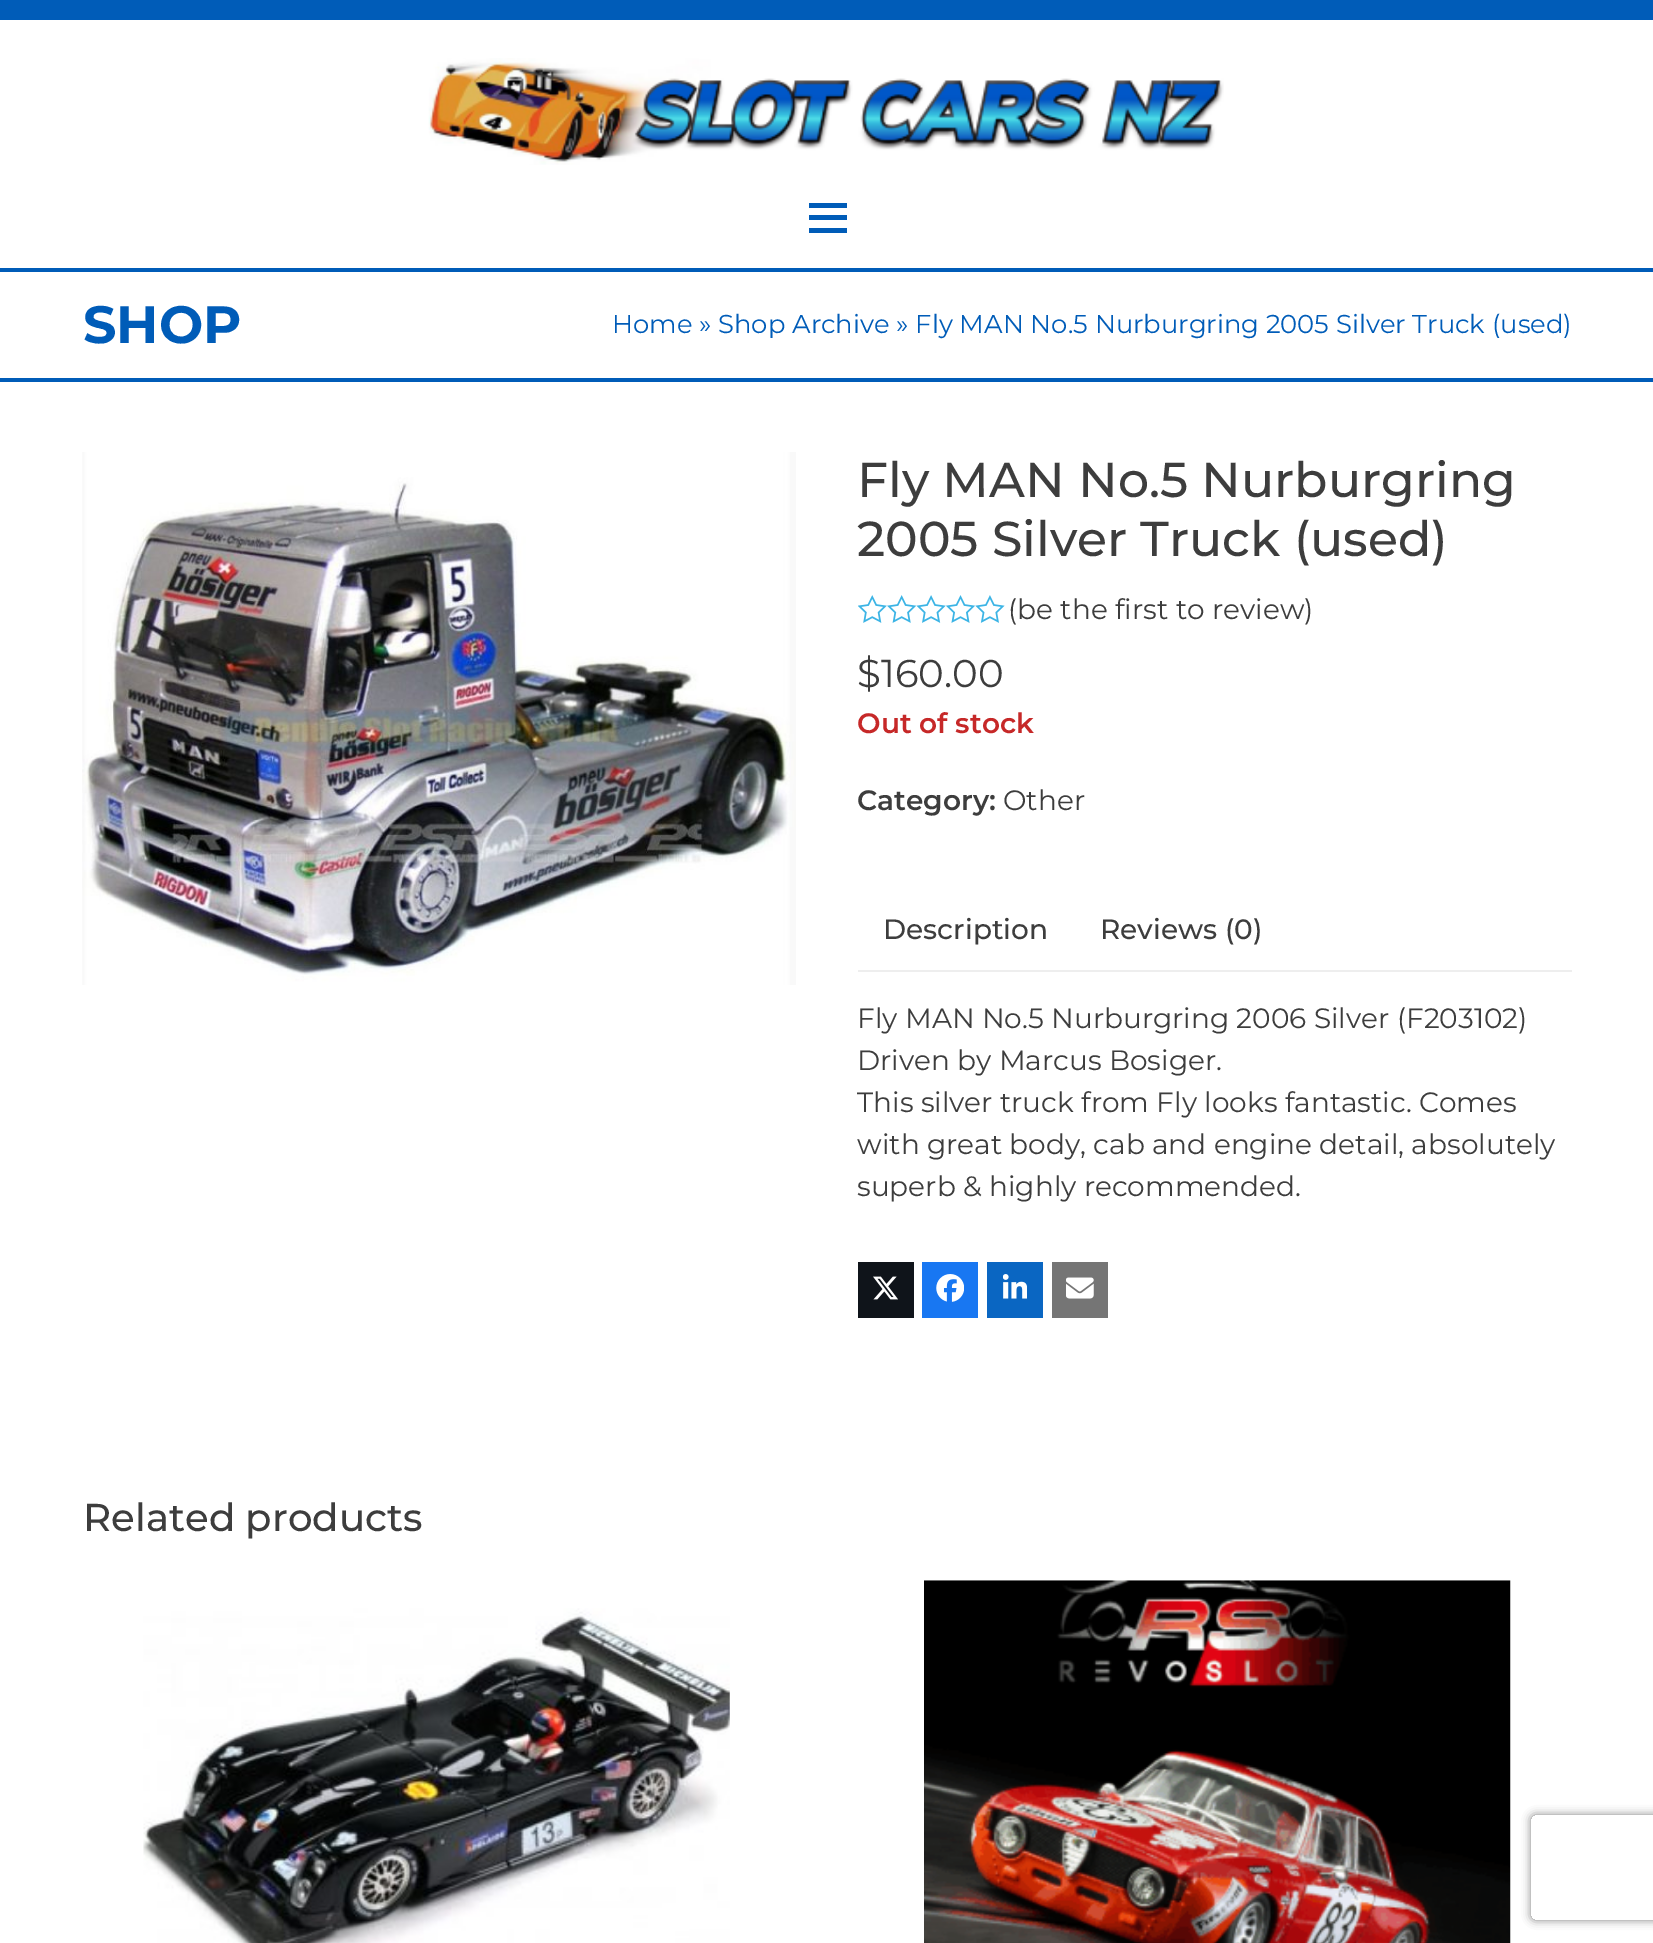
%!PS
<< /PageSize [1653 1943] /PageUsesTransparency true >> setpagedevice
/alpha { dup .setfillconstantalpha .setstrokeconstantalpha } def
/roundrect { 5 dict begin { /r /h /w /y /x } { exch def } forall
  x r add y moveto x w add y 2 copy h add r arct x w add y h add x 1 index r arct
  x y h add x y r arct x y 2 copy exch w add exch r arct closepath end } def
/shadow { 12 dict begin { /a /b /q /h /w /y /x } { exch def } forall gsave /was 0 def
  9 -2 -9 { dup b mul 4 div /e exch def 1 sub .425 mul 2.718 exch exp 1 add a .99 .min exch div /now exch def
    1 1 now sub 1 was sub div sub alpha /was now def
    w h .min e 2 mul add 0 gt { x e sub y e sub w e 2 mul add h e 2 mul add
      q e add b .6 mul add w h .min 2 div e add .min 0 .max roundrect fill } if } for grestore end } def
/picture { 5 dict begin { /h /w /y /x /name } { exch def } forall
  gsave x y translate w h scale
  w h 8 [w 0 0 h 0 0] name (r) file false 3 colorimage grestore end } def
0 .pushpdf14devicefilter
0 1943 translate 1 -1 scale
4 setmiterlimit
1 setgray
0 0 1653 1943 rectfill
0 0.361 0.722 setrgbcolor
0 0 1653 20 rectfill
(img1.rgb) 428 58 796 107 picture
809 215 38 5 rectfill
809 203 38 5 rectfill
809 228 38 5 rectfill
0 268 1653 4 rectfill
0 378 1653 4 rectfill
/Montserrat-Bold [52.5 0 0 -52.5 0 0] selectfont
83 343 moveto (SHOP) show
/Montserrat-Regular [25.85 0 0 -25.85 0 0] selectfont
612 333 moveto (Home » Shop Archive » Fly MAN No.5 Nurburgring 2005 Silver Truck \(used\)) show
(img2.rgb) 82 452 714 533 picture
/Montserrat-Medium [49 0 0 -49 0 0] selectfont
0.239 setgray
857 497 moveto (Fly MAN No.5 Nurburgring) show
857 556 moveto (2005 Silver Truck \(used\)) show
(img3.rgb) 858 595 147 28 picture
/Montserrat-Regular [28 0 0 -28 0 0] selectfont
1008 619 moveto (\(be the first to review\)) show
/Montserrat-Regular [38.75 0 0 -38.75 0 0] selectfont
857 687 moveto ($160.00) show
/Montserrat-SemiBold [28 0 0 -28 0 0] selectfont
0.776 0.157 0.157 setrgbcolor
857 733 moveto (Out of stock) show
0.239 setgray
857 810 moveto (Category:) show
/Montserrat-Regular [28 0 0 -28 0 0] selectfont
1003 810 moveto (Other) show
/Montserrat-Medium [28 0 0 -28 0 0] selectfont
883 939 moveto (Description) show
1100 939 moveto (Reviews \(0\)) show
0.933 setgray
858 970 714 2 rectfill
/Montserrat-Regular [28 0 0 -28 0 0] selectfont
0.239 setgray
857 1028 moveto (Fly MAN No.5 Nurburgring 2006 Silver \(F203102\)) show
857 1070 moveto (Driven by Marcus Bosiger.) show
857 1112 moveto (This silver truck from Fly looks fantastic. Comes) show
857 1154 moveto (with great body, cab and engine detail, absolutely) show
857 1196 moveto (superb & highly recommended.) show
0.059 0.078 0.102 setrgbcolor
858 1262 56 56 rectfill
(img4.rgb) 873 1276 25 24 picture
0.094 0.467 0.949 setrgbcolor
922 1262 56 56 rectfill
(img5.rgb) 936 1274 28 28 picture
0.039 0.4 0.761 setrgbcolor
987 1262 56 56 rectfill
(img6.rgb) 1003 1274 24 25 picture
0.459 setgray
1052 1262 56 56 rectfill
(img7.rgb) 1066 1277 28 22 picture
/Montserrat-Medium [38.75 0 0 -38.75 0 0] selectfont
0.239 setgray
83 1531 moveto (Related products) show
(img8.rgb) 143 1608 587 335 picture
(img9.rgb) 924 1580 587 363 picture
gsave
newpath 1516 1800 moveto 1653 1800 lineto 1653 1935 lineto 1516 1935 lineto closepath 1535 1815 moveto 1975 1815 lineto 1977 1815 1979 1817 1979 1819 curveto 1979 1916 lineto 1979 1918 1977 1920 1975 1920 curveto 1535 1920 lineto 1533 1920 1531 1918 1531 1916 curveto 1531 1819 lineto 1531 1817 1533 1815 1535 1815 curveto closepath eoclip newpath
0.502 setgray
1531 1815 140 105 4 4.5 1 shadow
grestore
.poppdf14devicefilter showpage
